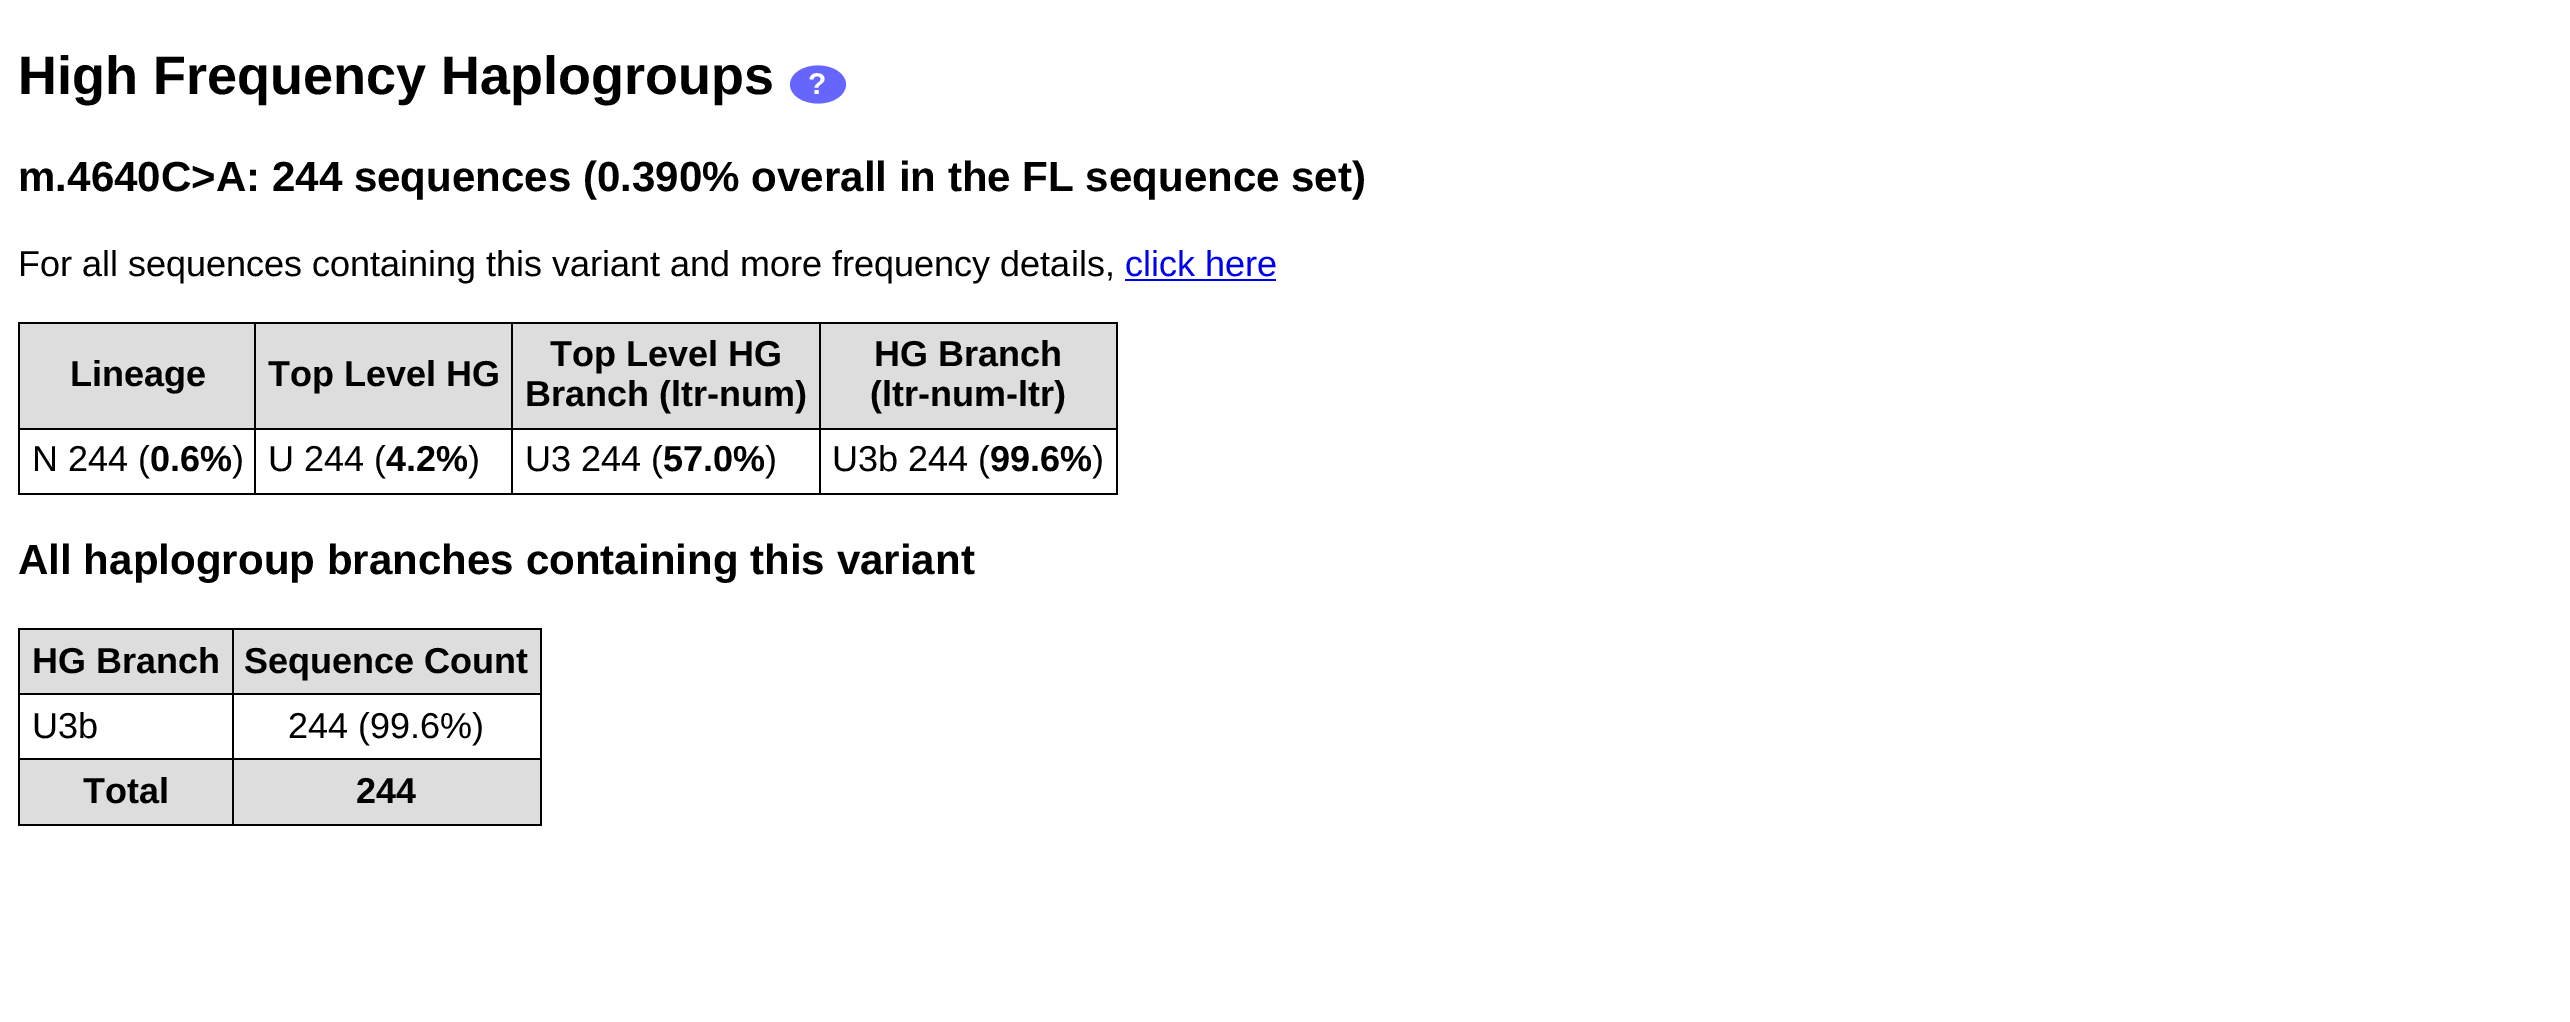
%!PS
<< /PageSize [2570 1022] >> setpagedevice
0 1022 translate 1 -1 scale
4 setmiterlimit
1 setgray
0 0 2570 1022 rectfill
/LiberationSans-Bold [54 0 0 -54 0 0] selectfont
0 setgray
18 94 moveto (High Frequency Haplogroups) show
0.4 0.4 1 setrgbcolor
newpath 818 65.5 moveto 833.5 65.5 846 74 846 84.5 curveto 846 95 833.5 103.5 818 103.5 curveto 802.5 103.5 790 95 790 84.5 curveto 790 74 802.5 65.5 818 65.5 curveto closepath fill
/LiberationSans-Bold [30 0 0 -30 0 0] selectfont
1 setgray
808 94 moveto (?) show
/LiberationSans-Bold [42.1 0 0 -42.1 0 0] selectfont
0 setgray
18 191 moveto -0.1 0 32 (m.4640C>A: 244 sequences \(0.390% overall in the FL sequence set\)) widthshow
/LiberationSans-Regular [36 0 0 -36 0 0] selectfont
18 276 moveto (For all sequences containing this variant and more frequency details,) show
0 0 0.933 setrgbcolor
1125 276 moveto (click here) show
1125 279 151 2 rectfill
0.867 setgray
20 324 491 104 rectfill
0 setgray
819 322 299 2 rectfill
819 428 299 2 rectfill
1116 428 2 67 rectfill
819 493 299 2 rectfill
819 428 2 67 rectfill
511 428 310 2 rectfill
819 322 2 108 rectfill
511 322 310 2 rectfill
511 493 310 2 rectfill
511 428 2 67 rectfill
254 428 259 2 rectfill
511 322 2 108 rectfill
254 322 259 2 rectfill
254 493 259 2 rectfill
254 428 2 67 rectfill
18 428 239 2 rectfill
254 322 2 108 rectfill
18 322 239 2 rectfill
18 493 239 2 rectfill
18 428 2 67 rectfill
18 322 2 108 rectfill
/LiberationSans-Bold [36 0 0 -36 0 0] selectfont
70 386 moveto (Lineage) show
268 386 moveto (Top Level HG) show
0.867 setgray
513 324 306 104 rectfill
0 setgray
550 366 moveto (Top Level HG) show
525 406 moveto (Branch \(ltr-num\)) show
0.867 setgray
821 324 295 104 rectfill
0 setgray
1116 322 2 108 rectfill
874 366 moveto (HG Branch) show
870 406 moveto (\(ltr-num-ltr\)) show
/LiberationSans-Regular [36 0 0 -36 0 0] selectfont
32 471 moveto (N 244 \() show
/LiberationSans-Bold [36 0 0 -36 0 0] selectfont
150 471 moveto (0.6%) show
/LiberationSans-Regular [36 0 0 -36 0 0] selectfont
232 471 moveto (\)) show
268 471 moveto (U 244 \() show
/LiberationSans-Bold [36 0 0 -36 0 0] selectfont
386 471 moveto (4.2%) show
/LiberationSans-Regular [36 0 0 -36 0 0] selectfont
468 471 moveto (\)) show
525 471 moveto (U3 244 \() show
/LiberationSans-Bold [36 0 0 -36 0 0] selectfont
663 471 moveto (57.0%) show
/LiberationSans-Regular [36 0 0 -36 0 0] selectfont
765 471 moveto (\)) show
832 471 moveto (U3b 244 \() show
/LiberationSans-Bold [36 0 0 -36 0 0] selectfont
990 471 moveto (99.6%) show
/LiberationSans-Regular [36 0 0 -36 0 0] selectfont
1092 471 moveto (\)) show
/LiberationSans-Bold [42.1 0 0 -42.1 0 0] selectfont
18 574 moveto (All haplogroup branches containing this variant) show
0.867 setgray
20 630 212 63 rectfill
0 setgray
232 628 310 2 rectfill
232 693 310 2 rectfill
232 758 310 2 rectfill
540 758 2 68 rectfill
232 824 310 2 rectfill
232 758 2 68 rectfill
18 758 216 2 rectfill
232 693 2 68 rectfill
18 693 216 2 rectfill
232 628 2 67 rectfill
18 628 216 2 rectfill
18 824 216 2 rectfill
18 758 2 68 rectfill
18 693 2 68 rectfill
18 628 2 67 rectfill
/LiberationSans-Bold [36 0 0 -36 0 0] selectfont
32 673 moveto (HG Branch) show
0.867 setgray
234 630 306 63 rectfill
0 setgray
540 693 2 68 rectfill
540 628 2 67 rectfill
244 673 moveto (Sequence Count) show
/LiberationSans-Regular [36 0 0 -36 0 0] selectfont
32 738 moveto (U3b) show
288 738 moveto (244 \(99.6%\)) show
0.867 setgray
20 760 212 64 rectfill
/LiberationSans-Bold [36 0 0 -36 0 0] selectfont
0 setgray
83 803 moveto (Total) show
0.867 setgray
234 760 306 64 rectfill
0 setgray
356 803 moveto (244) show
showpage
